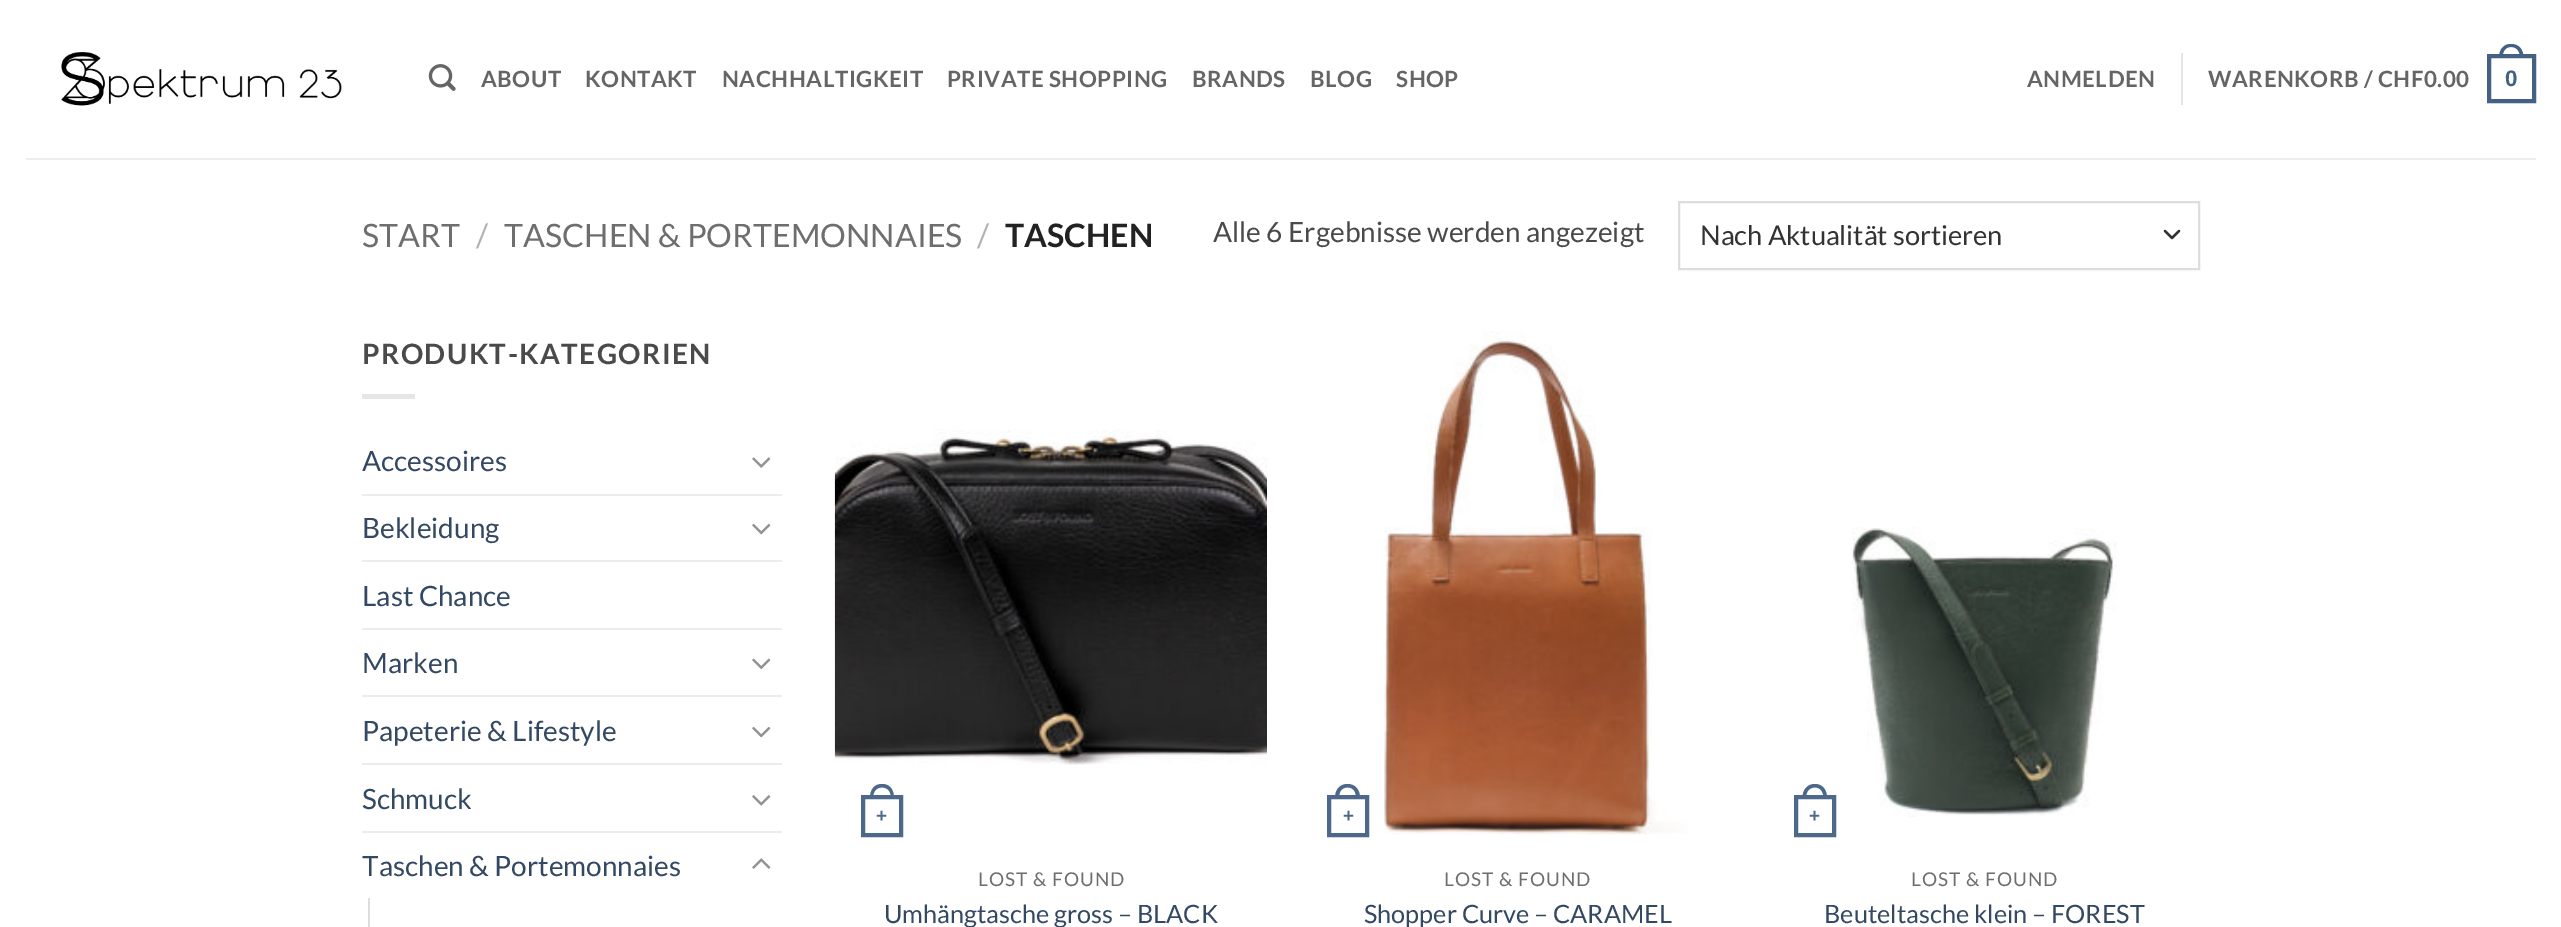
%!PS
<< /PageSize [2561 927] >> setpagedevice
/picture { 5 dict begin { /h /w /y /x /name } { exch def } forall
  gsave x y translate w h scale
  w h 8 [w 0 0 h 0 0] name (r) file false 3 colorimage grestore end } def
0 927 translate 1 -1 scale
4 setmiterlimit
1 setgray
0 0 2561 927 rectfill
(img1.rgb) 61 52 281 54 picture
(img2.rgb) 428 64 28 27 picture
/Lato-Bold [22.4 0 0 -22.4 0 0] selectfont
0.396 setgray
481 87 moveto 0.5 0 (ABOUT) ashow
585 87 moveto 0.5 0 (KONTAKT) ashow
722 87 moveto 0.5 0 (NACHHALTIGKEIT) ashow
947 87 moveto 0.5 0 (PRIVATE SHOPPING) ashow
1192 87 moveto 0.5 0 (BRANDS) ashow
1310 87 moveto 0.5 0 (BLOG) ashow
1396 87 moveto 0.5 0 (SHOP) ashow
2027 87 moveto 0.5 0 (ANMELDEN) ashow
0.902 setgray
2181 53 2 52 rectfill
0.396 setgray
2208 87 moveto 0.5 0 (WARENKORB / CHF0.00) ashow
0.267 0.376 0.518 setrgbcolor
4 setlinewidth
2489 56 45 45 rectstroke
newpath 2511 44 moveto 2519.5 44 2523.5 50 2523.5 58 curveto 2499 58 lineto 2499 50 2503 44 2511 44 curveto closepath 2511 47 moveto 2517.5 47 2520 52 2520 58 curveto 2502.5 58 lineto 2502.5 52 2505 47 2511 47 curveto closepath eofill
/LiberationSans-Bold [22.4 0 0 -22.4 0 0] selectfont
2505 86 moveto 0.5 0 (0) ashow
0.929 setgray
26 158 2510 2 rectfill
/Lato-Regular [32.25 0 0 -32.25 0 0] selectfont
0.431 setgray
362 247 moveto (START) show
0.698 setgray
476 247 moveto (/) show
0.431 setgray
504 247 moveto (TASCHEN & PORTEMONNAIES) show
0.698 setgray
977 247 moveto (/) show
/Lato-Bold [32.25 0 0 -32.25 0 0] selectfont
0.133 setgray
1005 247 moveto (TASCHEN) show
/Lato-Regular [28 0 0 -28 0 0] selectfont
0.29 setgray
1213 242 moveto (Alle 6 Ergebnisse werden angezeigt) show
0.2 setgray
2.3 setlinewidth
1 setlinecap
1 setlinejoin
newpath 2165 231 moveto 2172 238 lineto 2179 231 lineto stroke
0.867 setgray
2 setlinewidth
0 setlinecap
0 setlinejoin
1679 202 520 67 rectstroke
/Lato-Regular [27.25 0 0 -27.25 0 0] selectfont
0.2 setgray
1700 245 moveto (Nach Aktualität sortieren) show
/Lato-Bold [28 0 0 -28 0 0] selectfont
0.29 setgray
362 364 moveto 1.4 0 (PRODUKT-KATEGORIEN) ashow
0.902 setgray
362 394 53 5 rectfill
/Lato-Regular [28 0 0 -28 0 0] selectfont
0.2 0.282 0.384 setrgbcolor
362 471 moveto (Accessoires) show
(img3.rgb) 752 457 19 11 picture
0.925 setgray
362 494 420 2 rectfill
0.2 0.282 0.384 setrgbcolor
362 538 moveto (Bekleidung) show
(img4.rgb) 752 523 19 12 picture
0.925 setgray
362 560 420 2 rectfill
0.2 0.282 0.384 setrgbcolor
362 606 moveto (Last Chance) show
0.925 setgray
362 628 420 2 rectfill
0.2 0.282 0.384 setrgbcolor
362 673 moveto (Marken) show
(img5.rgb) 752 658 19 12 picture
0.925 setgray
362 695 420 2 rectfill
0.2 0.282 0.384 setrgbcolor
362 741 moveto (Papeterie & Lifestyle) show
(img4.rgb) 752 726 19 12 picture
0.925 setgray
362 763 420 2 rectfill
0.2 0.282 0.384 setrgbcolor
362 809 moveto (Schmuck) show
(img6.rgb) 752 795 19 11 picture
0.925 setgray
362 831 420 2 rectfill
0.2 0.282 0.384 setrgbcolor
362 876 moveto (Taschen & Portemonnaies) show
(img7.rgb) 752 858 19 11 picture
0.867 setgray
368 898 2 29 rectfill
(img8.rgb) 834 429 433 336 picture
0.302 0.408 0.541 setrgbcolor
4 setlinewidth
863 797 38 38 rectstroke
newpath 882 784 moveto 890.5 784 894 790.5 894 798 curveto 870 798 lineto 870 790.5 873.5 784 882 784 curveto closepath 882 787.5 moveto 888.5 787.5 891 792.5 891 798 curveto 873 798 lineto 873 792.5 875.5 787.5 882 787.5 curveto closepath eofill
/LiberationSans-Bold [19 0 0 -19 0 0] selectfont
876 822 moveto (+) show
/Lato-Regular [19 0 0 -19 0 0] selectfont
0.431 setgray
978 886 moveto 1 0 (LOST & FOUND) ashow
/Lato-Regular [25.25 0 0 -25.25 0 0] selectfont
0.2 0.282 0.384 setrgbcolor
884 923 moveto (Umhängtasche gross – BLACK) show
0.302 0.408 0.541 setrgbcolor
1329 797 38 38 rectstroke
newpath 1347.5 784 moveto 1356 784 1360 790.5 1360 798 curveto 1335 798 lineto 1335 790.5 1339 784 1347.5 784 curveto closepath 1347.5 787.5 moveto 1354 787.5 1356 792.5 1356 798 curveto 1339 798 lineto 1339 792.5 1341 787.5 1347.5 787.5 curveto closepath eofill
/LiberationSans-Bold [19 0 0 -19 0 0] selectfont
1343 822 moveto (+) show
(img9.rgb) 1384 331 304 504 picture
/Lato-Regular [19 0 0 -19 0 0] selectfont
0.431 setgray
1444 886 moveto 1 0 (LOST & FOUND) ashow
/Lato-Regular [25.25 0 0 -25.25 0 0] selectfont
0.2 0.282 0.384 setrgbcolor
1364 923 moveto (Shopper Curve – CARAMEL) show
0.302 0.408 0.541 setrgbcolor
1796 797 38 38 rectstroke
newpath 1815 784 moveto 1823 784 1827 790.5 1827 798 curveto 1802.5 798 lineto 1802.5 790.5 1806.5 784 1815 784 curveto closepath 1815 787.5 moveto 1821 787.5 1823.5 792.5 1823.5 798 curveto 1806 798 lineto 1806 792.5 1808.5 787.5 1815 787.5 curveto closepath eofill
/LiberationSans-Bold [19 0 0 -19 0 0] selectfont
1809 822 moveto (+) show
(img10.rgb) 1851 527 266 290 picture
/Lato-Regular [19 0 0 -19 0 0] selectfont
0.431 setgray
1911 886 moveto 1 0 (LOST & FOUND) ashow
/Lato-Regular [25.25 0 0 -25.25 0 0] selectfont
0.2 0.282 0.384 setrgbcolor
1824 923 moveto (Beuteltasche klein – FOREST) show
showpage
